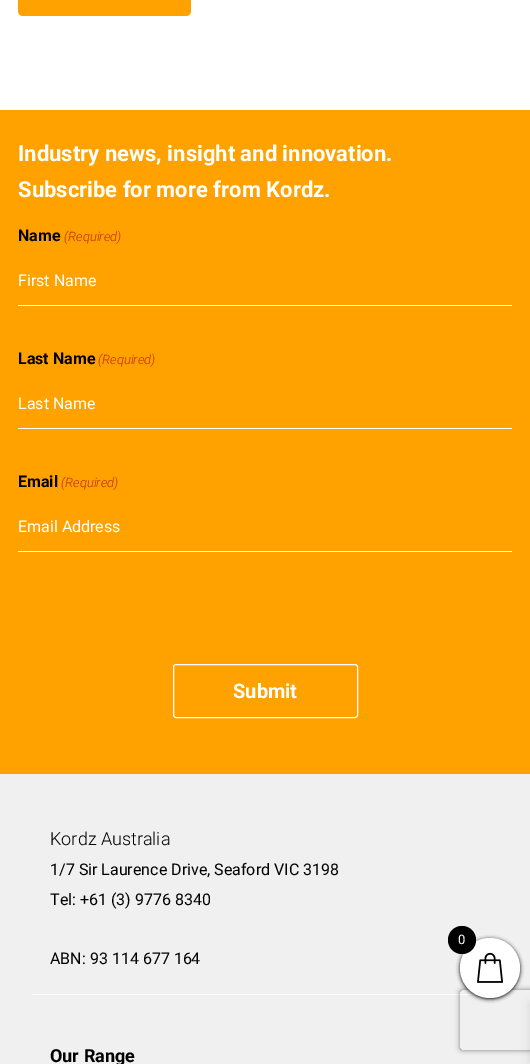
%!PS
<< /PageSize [530 1064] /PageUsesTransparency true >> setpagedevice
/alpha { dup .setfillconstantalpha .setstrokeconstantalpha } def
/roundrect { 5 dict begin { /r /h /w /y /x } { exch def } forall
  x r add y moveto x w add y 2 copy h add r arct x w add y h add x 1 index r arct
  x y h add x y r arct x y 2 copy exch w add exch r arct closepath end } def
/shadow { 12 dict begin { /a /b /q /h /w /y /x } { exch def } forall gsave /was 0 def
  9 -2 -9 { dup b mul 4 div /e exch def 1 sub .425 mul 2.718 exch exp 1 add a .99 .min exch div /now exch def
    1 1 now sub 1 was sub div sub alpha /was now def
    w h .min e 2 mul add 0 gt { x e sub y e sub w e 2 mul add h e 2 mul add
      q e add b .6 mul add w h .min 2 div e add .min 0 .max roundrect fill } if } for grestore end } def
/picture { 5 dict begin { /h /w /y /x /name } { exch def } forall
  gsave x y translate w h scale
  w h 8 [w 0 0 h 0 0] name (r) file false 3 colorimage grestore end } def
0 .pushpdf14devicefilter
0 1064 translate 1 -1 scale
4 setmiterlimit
1 setgray
0 0 530 1064 rectfill
1 0.635 0 setrgbcolor
18 -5 173 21 5 roundrect fill
0 110 530 664 rectfill
/Roboto-Bold [22 0 0 -22 0 0] selectfont
1 setgray
18 161 moveto (Industry news, insight and innovation.) show
18 197 moveto (Subscribe for more from Kordz.) show
/Roboto-Bold [16 0 0 -16 0 0] selectfont
0 setgray
18 241 moveto (Name) show
/Roboto-LightItalic [13 0 0 -13 0 0] selectfont
0.753 0.169 0.039 setrgbcolor
64 241 moveto (\(Required\)) show
1 setgray
18 305 494 1 rectfill
/Roboto-Regular [16 0 0 -16 0 0] selectfont
18 286 moveto (First Name) show
/Roboto-Bold [16 0 0 -16 0 0] selectfont
0 setgray
18 364 moveto (Last Name) show
/Roboto-LightItalic [13 0 0 -13 0 0] selectfont
0.753 0.169 0.039 setrgbcolor
98 364 moveto (\(Required\)) show
1 setgray
18 428 494 1 rectfill
/Roboto-Regular [16 0 0 -16 0 0] selectfont
18 409 moveto (Last Name) show
/Roboto-Bold [16 0 0 -16 0 0] selectfont
0 setgray
18 487 moveto (Email) show
/Roboto-LightItalic [13 0 0 -13 0 0] selectfont
0.753 0.169 0.039 setrgbcolor
61 487 moveto (\(Required\)) show
1 setgray
18 551 494 1 rectfill
/Roboto-Regular [16 0 0 -16 0 0] selectfont
18 532 moveto (Email Address) show
0.941 setgray
0 774 530 290 rectfill
1 setgray
32 994 445 1 rectfill
gsave
newpath 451 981 moveto 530 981 lineto 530 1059 lineto 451 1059 lineto closepath 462 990 moveto 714 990 lineto 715 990 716 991 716 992 curveto 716 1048 lineto 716 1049 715 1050 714 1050 curveto 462 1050 lineto 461 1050 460 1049 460 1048 curveto 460 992 lineto 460 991 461 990 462 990 curveto closepath eoclip newpath
0.502 setgray
460 990 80 60 2 2.5 1 shadow
grestore
173.5 664.5 184 53 2.5 roundrect stroke
/Roboto-Bold [20 0 0 -20 0 0] selectfont
233 698 moveto (Submit) show
/Roboto-Light [18 0 0 -18 0 0] selectfont
0 setgray
50 845 moveto (Kordz Australia) show
/Roboto-Regular [16 0 0 -16 0 0] selectfont
50 875 moveto (1/7 Sir Laurence Drive, Seaford VIC 3198) show
50 905 moveto (Tel: +61 \(3\) 9776 8340) show
50 964 moveto (ABN: 93 114 677 164) show
/Roboto-Bold [18 0 0 -18 0 0] selectfont
50 1062 moveto (Our Range) show
460 939 60 60 30 2 1 shadow
530 1003 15 60 0 5 0.1 shadow
1 setgray
newpath 490 968 30 0 360 arc closepath fill
0 setgray
newpath 462 940 14 0 360 arc closepath fill
/Roboto-Regular [13 0 0 -13 0 0] selectfont
1 setgray
458 944 moveto (0) show
(img1.rgb) 477 952 26 31 picture
.poppdf14devicefilter showpage
